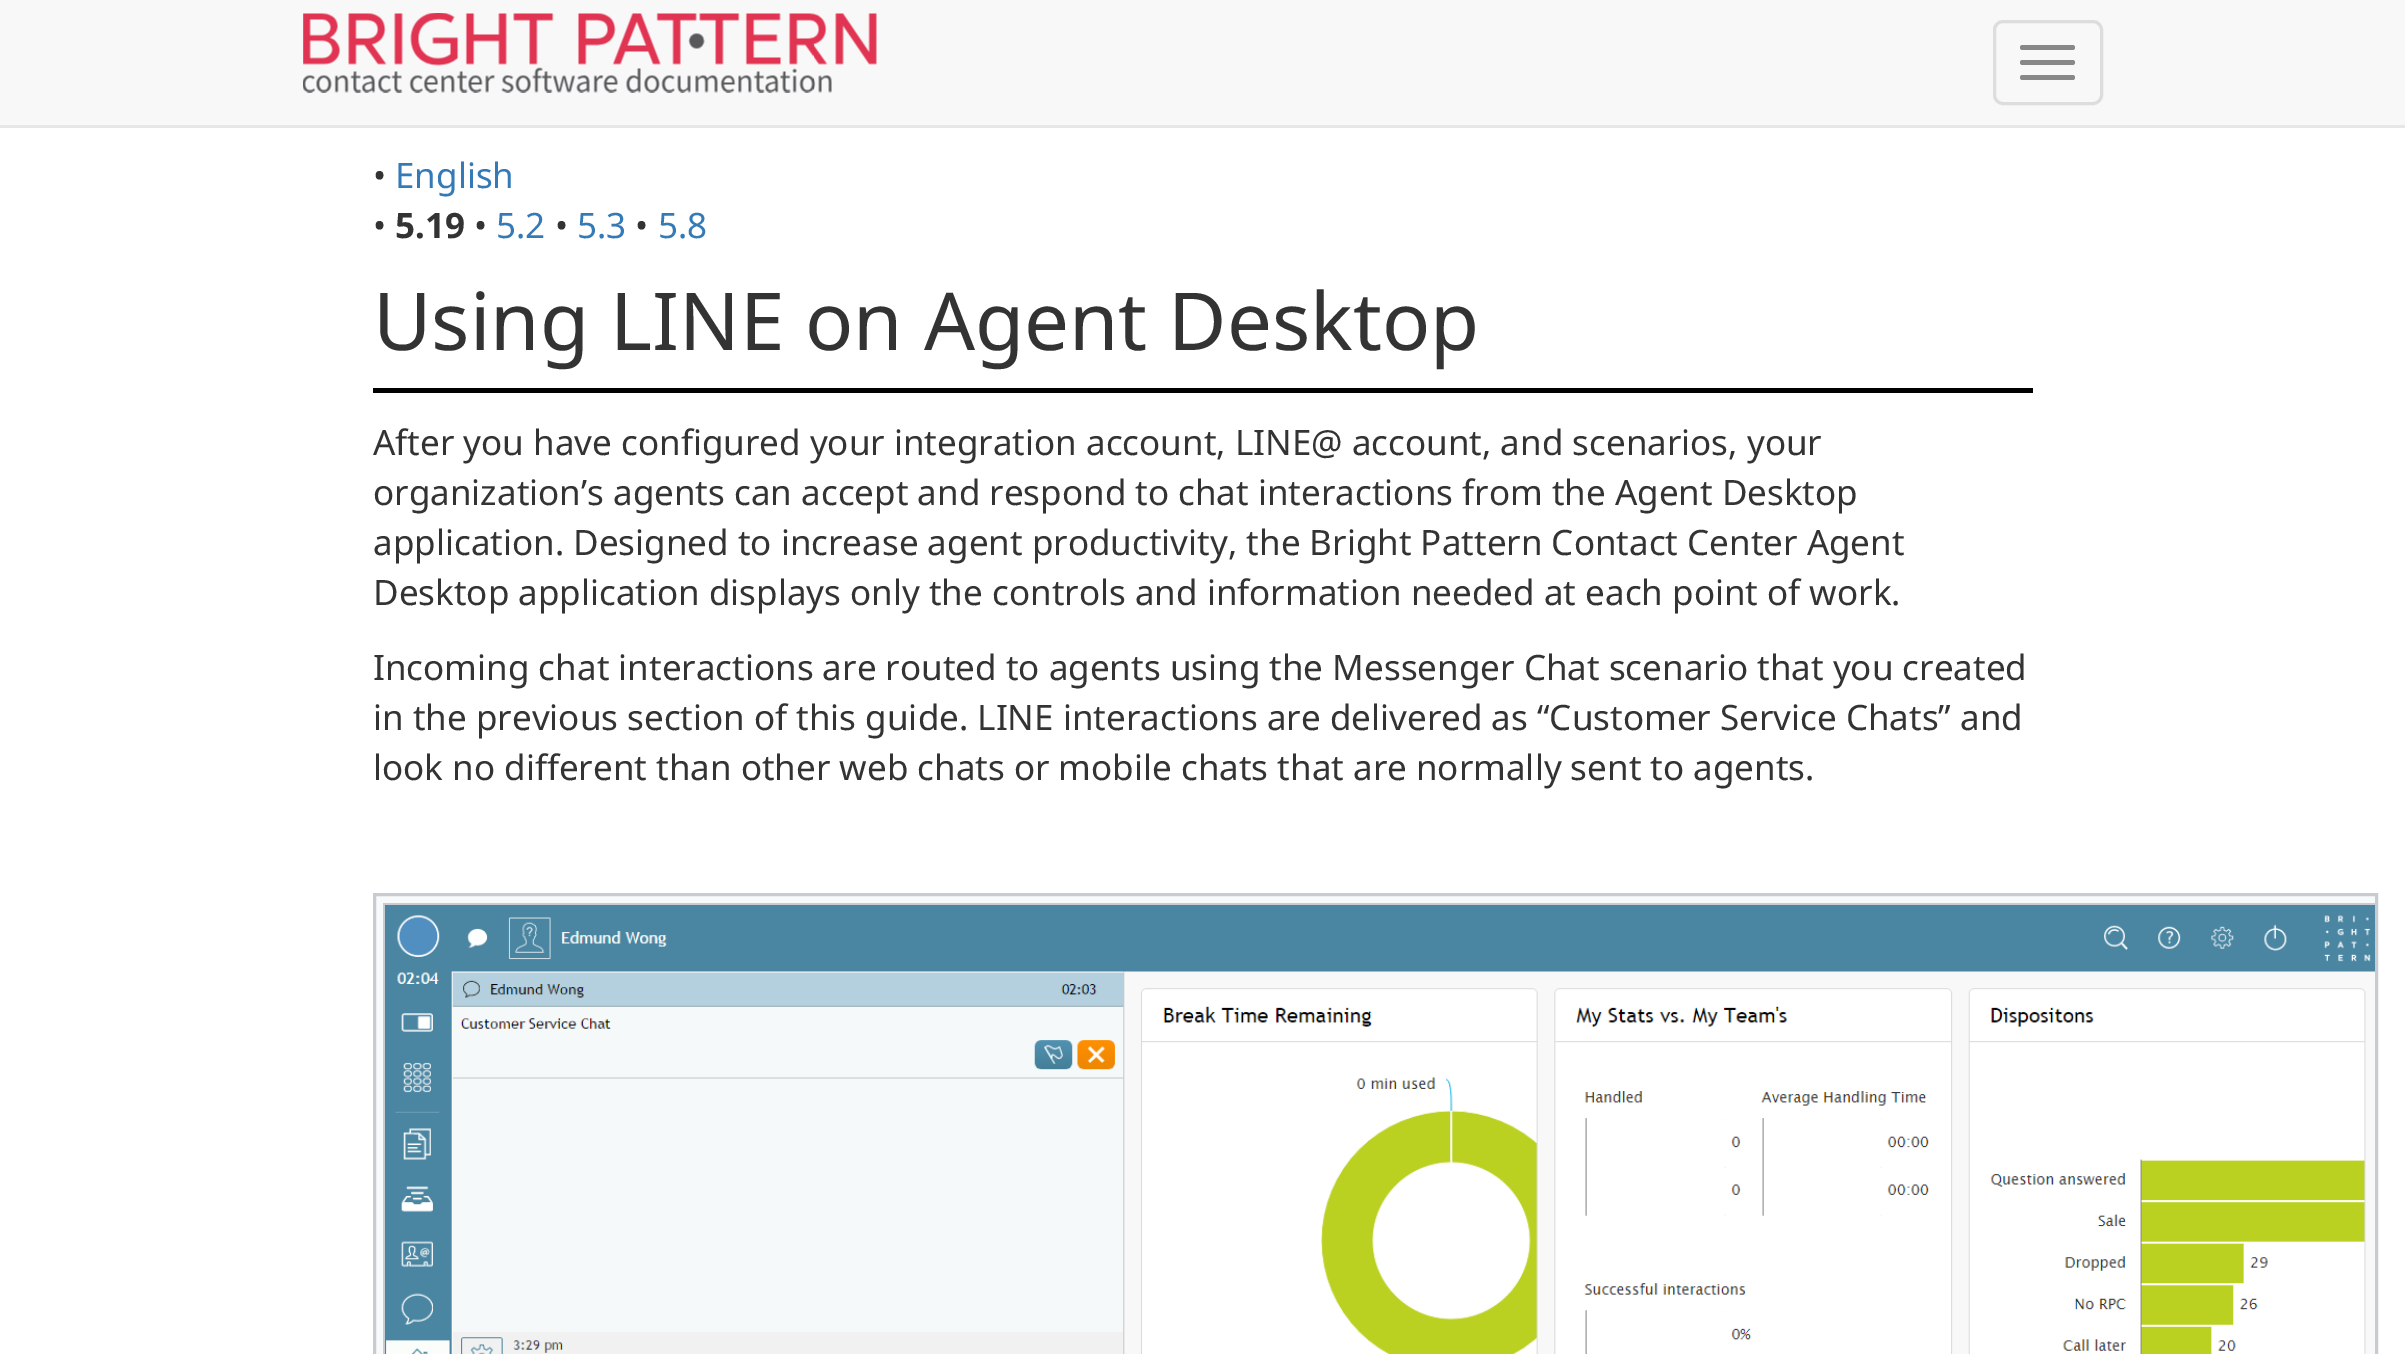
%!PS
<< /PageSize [2405 1354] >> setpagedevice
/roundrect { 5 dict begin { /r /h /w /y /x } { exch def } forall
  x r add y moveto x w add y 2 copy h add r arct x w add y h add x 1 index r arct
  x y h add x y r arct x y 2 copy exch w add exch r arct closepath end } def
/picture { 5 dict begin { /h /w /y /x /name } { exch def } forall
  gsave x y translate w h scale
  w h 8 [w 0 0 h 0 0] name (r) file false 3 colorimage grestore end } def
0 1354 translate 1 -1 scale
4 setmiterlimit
1 setgray
0 0 2405 1354 rectfill
0.973 setgray
0 0 2405 125 rectfill
0.906 setgray
0 125 2405 3 rectfill
(img1.rgb) 303 13 574 80 picture
0.867 setgray
3 setlinewidth
1994.5 21.5 107 82 8.5 roundrect stroke
0.533 setgray
2020 45 55 5 2.5 roundrect fill
2020 60 55 5 2.5 roundrect fill
2020 75 55 5 2.5 roundrect fill
/NotoSans-Regular [35 0 0 -35 0 0] selectfont
0.2 setgray
373 188 moveto (•) show
0.2 0.478 0.718 setrgbcolor
395 188 moveto (English) show
0.2 setgray
373 238 moveto (•) show
/NotoSans-Bold [35 0 0 -35 0 0] selectfont
395 238 moveto (5.19) show
/NotoSans-Regular [35 0 0 -35 0 0] selectfont
474 238 moveto (•) show
0.2 0.478 0.718 setrgbcolor
496 238 moveto (5.2) show
0.2 setgray
555 238 moveto (•) show
0.2 0.478 0.718 setrgbcolor
577 238 moveto (5.3) show
0.2 setgray
635 238 moveto (•) show
0.2 0.478 0.718 setrgbcolor
658 238 moveto (5.8) show
0 setgray
373 388 1660 5 rectfill
/NotoSans-Regular [80 0 0 -80 0 0] selectfont
0.2 setgray
373 350 moveto (Using LINE on Agent Desktop) show
/NotoSans-Regular [35 0 0 -35 0 0] selectfont
373 455 moveto (After you have configured your integration account, LINE@ account, and scenarios, your) show
373 505 moveto (organization’s agents can accept and respond to chat interactions from the Agent Desktop) show
373 555 moveto (application. Designed to increase agent productivity, the Bright Pattern Contact Center Agent) show
373 605 moveto (Desktop application displays only the controls and information needed at each point of work.) show
373 680 moveto (Incoming chat interactions are routed to agents using the Messenger Chat scenario that you created) show
373 730 moveto (in the previous section of this guide. LINE interactions are delivered as “Customer Service Chats” and) show
373 780 moveto (look no different than other web chats or mobile chats that are normally sent to agents.) show
0.973 0.976 0.98 setrgbcolor
newpath 374.5 894.5 moveto 2376.5 894.5 lineto 2376.5 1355.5 lineto 374.5 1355.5 lineto closepath gsave fill grestore
0.784 0.8 0.82 setrgbcolor
stroke
gsave
375 895 2000 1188 rectclip
384.5 904.5 1997 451 rectstroke
grestore
(img2.rgb) 385 905 1990 449 picture
showpage
